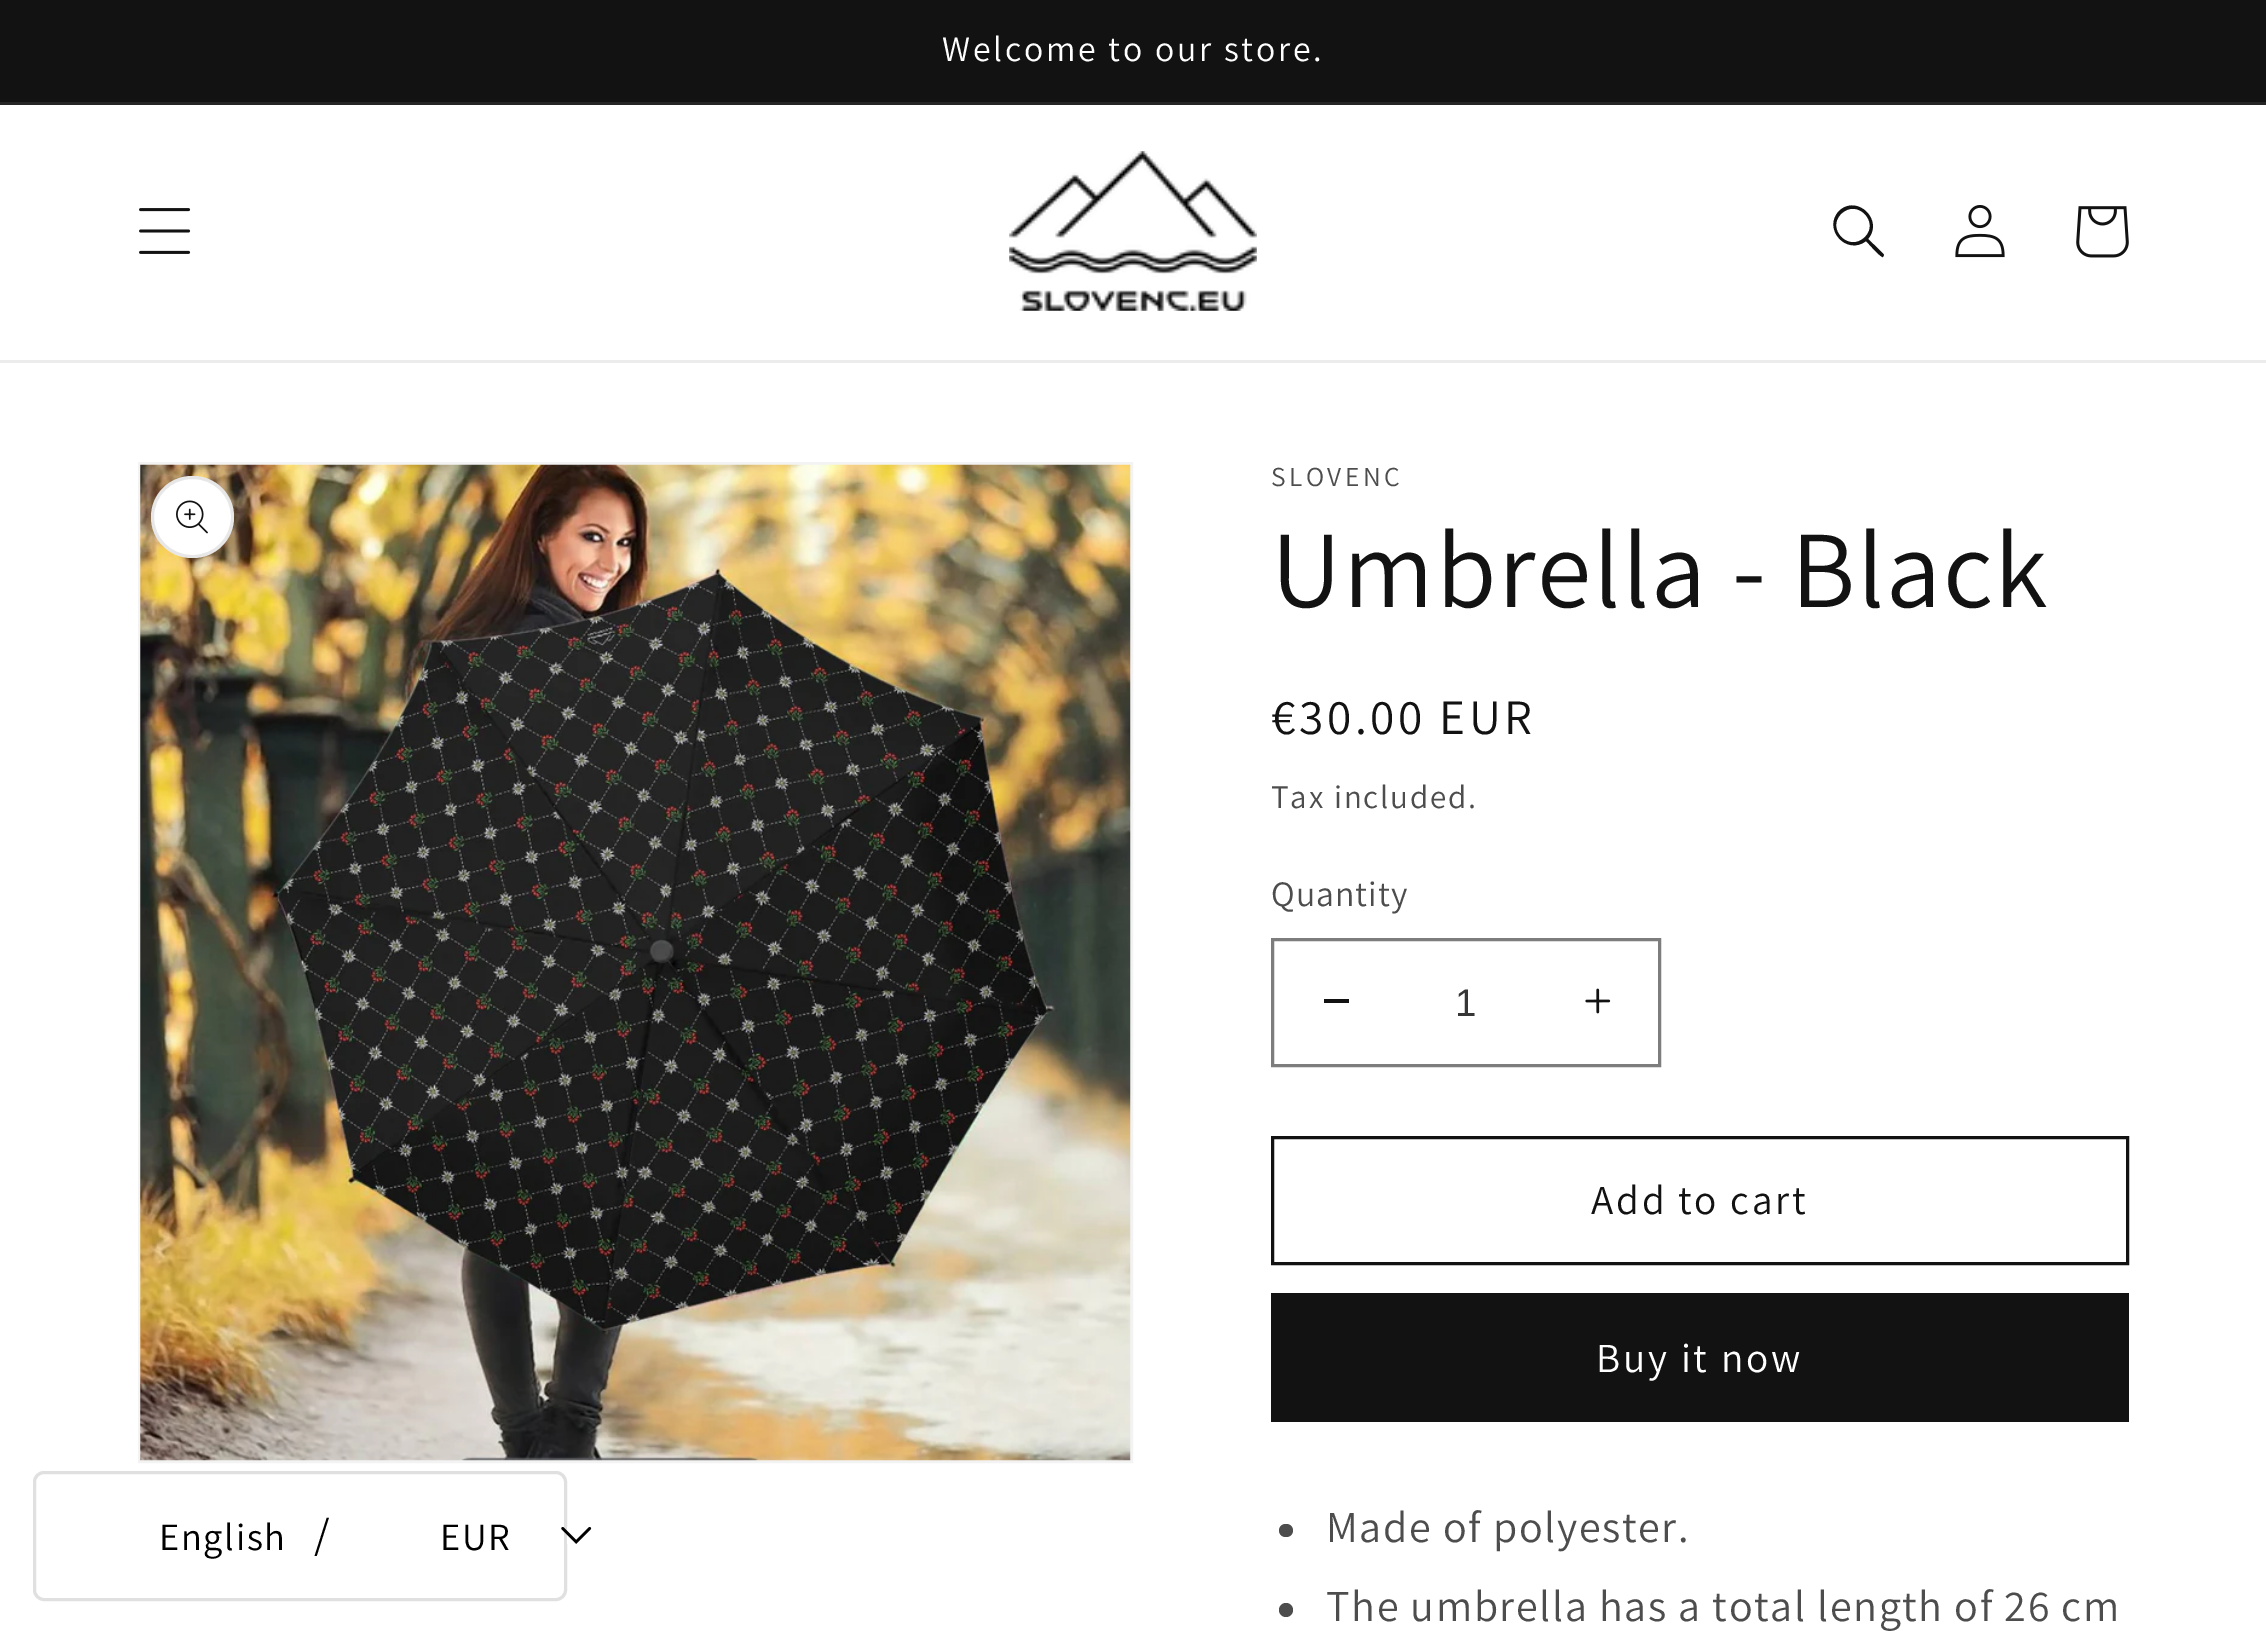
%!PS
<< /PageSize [2266 1631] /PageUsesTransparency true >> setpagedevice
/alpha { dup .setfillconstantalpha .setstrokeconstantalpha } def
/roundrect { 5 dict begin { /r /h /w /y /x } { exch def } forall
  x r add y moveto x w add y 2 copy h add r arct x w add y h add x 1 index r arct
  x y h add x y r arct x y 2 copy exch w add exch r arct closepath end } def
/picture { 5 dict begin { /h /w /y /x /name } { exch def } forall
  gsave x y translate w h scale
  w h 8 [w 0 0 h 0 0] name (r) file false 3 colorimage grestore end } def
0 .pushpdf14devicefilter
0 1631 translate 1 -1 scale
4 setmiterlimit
1 setgray
0 0 2266 1631 rectfill
0.071 setgray
0 0 2266 102 rectfill
0.145 setgray
0 102 2266 3 rectfill
/Assistant-Regular [35.75 0 0 -35.75 0 0] selectfont
1 setgray
942 61 moveto 2.75 0 (Welcome to our store.) ashow
0.925 setgray
0 360 2266 3 rectfill
(img1.rgb) 139 208 52 46 picture
(img2.rgb) 1009 151 248 160 picture
0.071 setgray
newpath 1865 237 moveto 1849 253 1826 229 1841 214 curveto 1857 198 1880 222 1865 237 curveto closepath 1866 241 moveto 1847 256 1822 229 1839 211 curveto 1857 194 1884 220 1868 239 curveto 1870 241 1884 254 1884 255 curveto 1883 257 lineto 1881 258 1868 243 1866 241 curveto closepath eofill
(img3.rgb) 1955 205 50 53 picture
(img4.rgb) 2076 206 53 52 picture
0.878 setgray
3 setlinewidth
34.5 1472.5 531 127 9.5 roundrect stroke
/Assistant-Regular [38.5 0 0 -38.5 0 0] selectfont
0 setgray
159 1550 moveto 1.65 0 (English) ashow
/Assistant-Regular [44 0 0 -44 0 0] selectfont
314 1549 moveto 1.65 0 (/) ashow
/Assistant-Regular [38.5 0 0 -38.5 0 0] selectfont
440 1550 moveto 1.65 0 (EUR) ashow
(img5.rgb) 561 1527 31 17 picture
0.953 setgray
139.5 463.5 992 998 rectstroke
(img6.rgb) 140 464 991 997 picture
1 setgray
151 476 83 82 41 roundrect fill
0.1 alpha
0.071 setgray
152.5 477.5 80 79 39.5 roundrect stroke
1 alpha
(img7.rgb) 176 500 32 34 picture
/Assistant-Regular [27.5 0 0 -27.5 0 0] selectfont
0.302 setgray
1271 486 moveto 3.5 0 (SLOVENC) ashow
/Assistant-Regular [110 0 0 -110 0 0] selectfont
0.071 setgray
1271 607 moveto 1.65 0 (Umbrella - Black) ashow
/Assistant-Regular [49.5 0 0 -49.5 0 0] selectfont
1271 734 moveto 3.5 0 (€30.00 EUR) ashow
/Assistant-Regular [33 0 0 -33 0 0] selectfont
0.302 setgray
1271 808 moveto 1.9 0 (Tax included.) ashow
/Assistant-Regular [35.75 0 0 -35.75 0 0] selectfont
1271 906 moveto 1 0 (Quantity) ashow
0.071 setgray
1324 999 25 4 rectfill
(img8.rgb) 1585 988 26 26 picture
0.49 setgray
1272.5 939.5 387 126 rectstroke
/LiberationSans-Regular [38.5 0 0 -38.5 0 0] selectfont
0.212 setgray
1455 1016 moveto (1) show
0.071 setgray
1272.5 1137.5 855 126 rectstroke
/Assistant-Regular [41.25 0 0 -41.25 0 0] selectfont
1591 1214 moveto 2.75 0 (Add to cart) ashow
1271 1293 858 129 rectfill
1 setgray
1596 1372 moveto 2.75 0 (Buy it now) ashow
0.302 setgray
1279 1524 14 13 6.5 roundrect fill
/Assistant-Regular [44 0 0 -44 0 0] selectfont
1326 1542 moveto 1.65 0 (Made of polyester.) ashow
newpath 1286 1610 7 0 360 arc closepath fill
1326 1621 moveto 1.65 0 (The umbrella has a total length of 26 cm) ashow
.poppdf14devicefilter showpage
